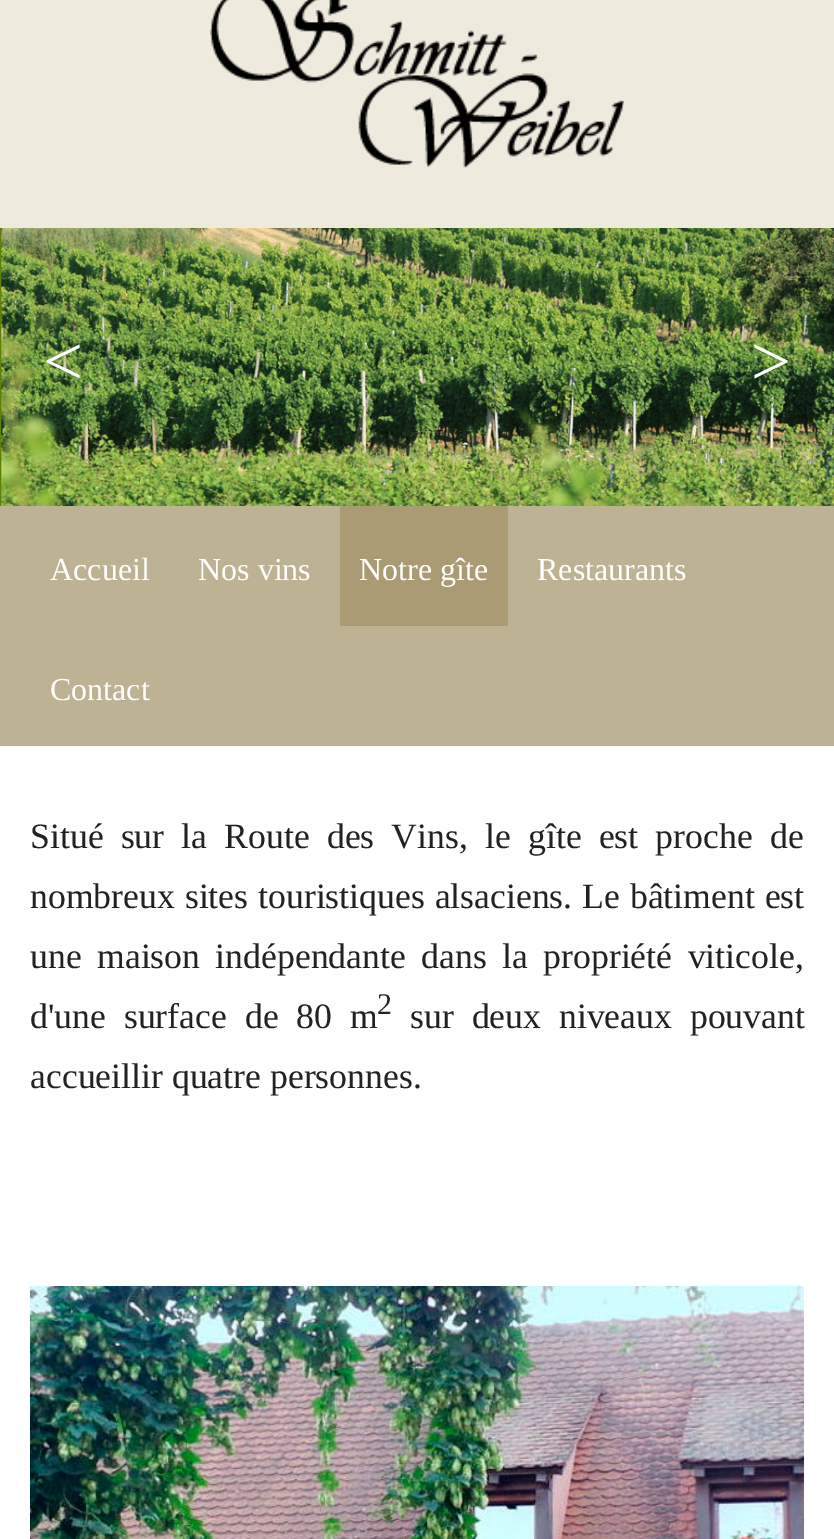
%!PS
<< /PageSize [834 1539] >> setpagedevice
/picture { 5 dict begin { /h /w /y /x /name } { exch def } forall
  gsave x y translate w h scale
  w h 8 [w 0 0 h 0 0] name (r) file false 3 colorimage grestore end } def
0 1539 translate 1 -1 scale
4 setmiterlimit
0.937 0.918 0.871 setrgbcolor
0 0 834 1539 rectfill
(img1.rgb) 210 0 414 168 picture
(img2.rgb) 0 228 834 278 picture
/LiberationSerif-Regular [71 0 0 -71 0 0] selectfont
1 setgray
43 385 moveto (<) show
751 385 moveto (>) show
0.745 0.698 0.584 setrgbcolor
0 506 834 240 rectfill
/LiberationSerif-Regular [32 0 0 -32 0 0] selectfont
1 setgray
50 580 moveto (Accueil) show
198 580 moveto (Nos vins) show
0.667 0.608 0.459 setrgbcolor
340 506 168 120 rectfill
1 setgray
359 580 moveto (Notre gîte) show
537 580 moveto (Restaurants) show
50 700 moveto (Contact) show
0 746 834 793 rectfill
/LiberationSerif-Regular [35.7 0 0 -35.7 0 0] selectfont
0.133 setgray
30 848 moveto 8.25 0 32 (Situé sur la Route des Vins, le gîte est proche de) widthshow
30 908 moveto 1 0 32 (nombreux sites touristiques alsaciens. Le bâtiment est) widthshow
30 968 moveto 6.5 0 32 (une maison indépendante dans la propriété viticole,) widthshow
30 1028 moveto 9 0 32 (d'une surface de 80 m) widthshow
/LiberationSerif-Regular [30 0 0 -30 0 0] selectfont
377 1014 moveto (2) show
/LiberationSerif-Regular [35.7 0 0 -35.7 0 0] selectfont
410 1028 moveto 9 0 32 (sur deux niveaux pouvant) widthshow
30 1088 moveto (accueillir quatre personnes.) show
(img3.rgb) 30 1286 774 253 picture
showpage
